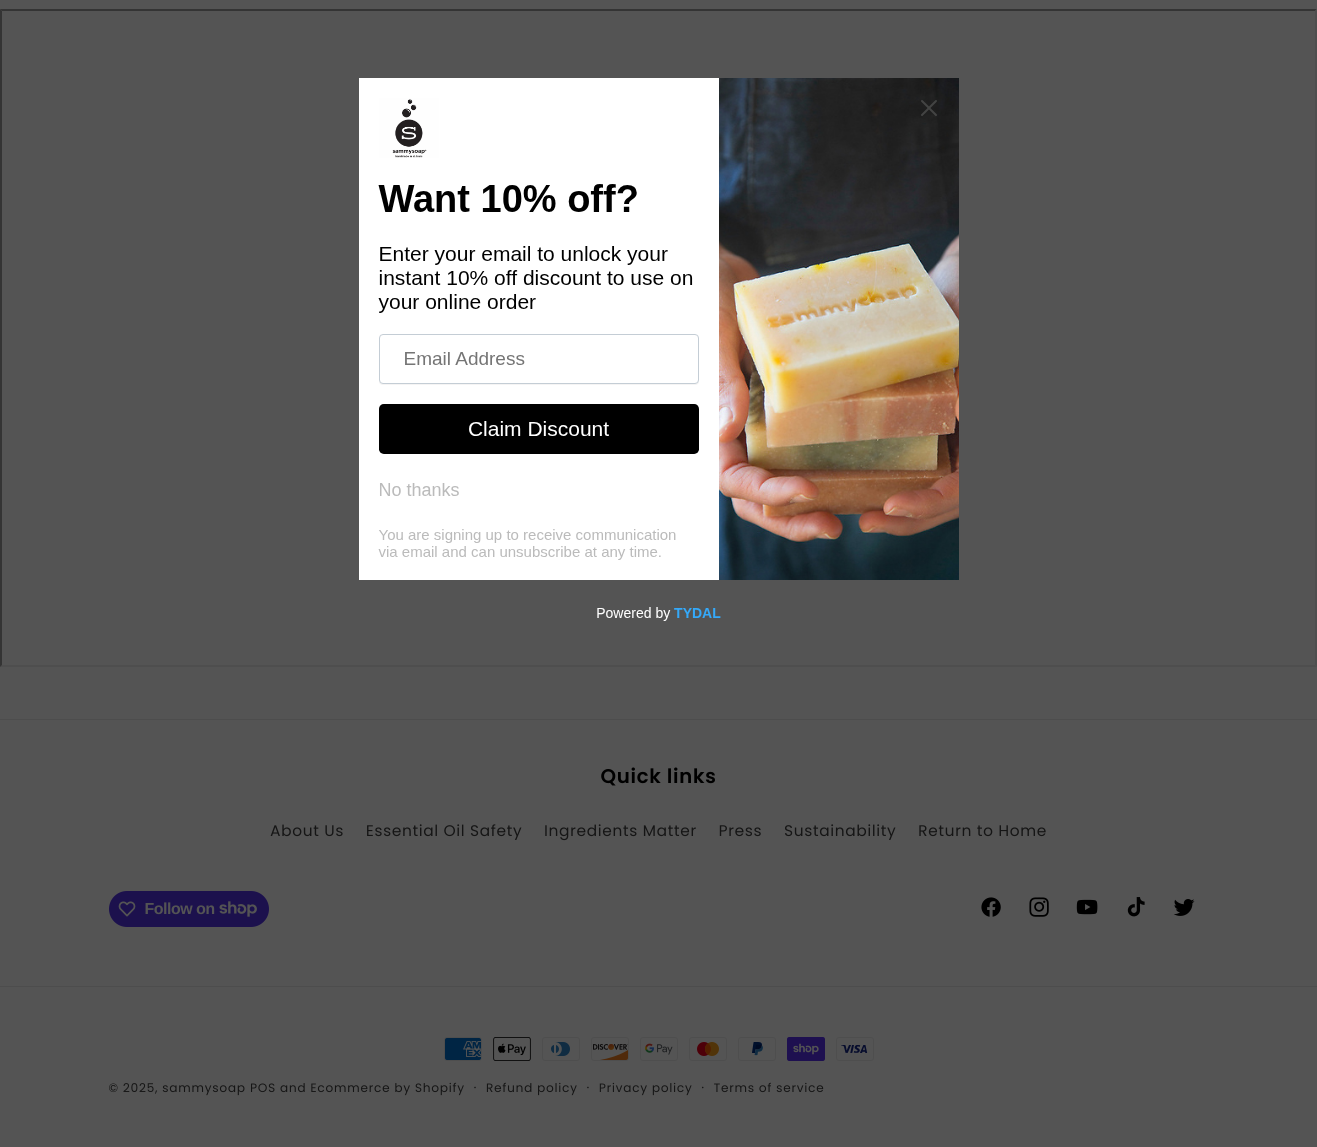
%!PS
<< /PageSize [1317 1147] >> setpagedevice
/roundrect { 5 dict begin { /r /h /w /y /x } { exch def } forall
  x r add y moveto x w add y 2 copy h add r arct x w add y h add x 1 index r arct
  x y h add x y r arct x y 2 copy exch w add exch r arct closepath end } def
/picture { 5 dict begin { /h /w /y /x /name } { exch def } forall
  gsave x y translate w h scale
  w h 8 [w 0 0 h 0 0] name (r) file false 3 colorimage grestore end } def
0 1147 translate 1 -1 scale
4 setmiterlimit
1 setgray
0 0 1317 1147 rectfill
0.624 setgray
newpath 0 9 moveto 1317 9 lineto 1315 11 lineto 2 11 lineto closepath fill
0.933 setgray
newpath 1317 9 moveto 1317 667 lineto 1315 665 lineto 1315 11 lineto closepath fill
newpath 1317 667 moveto 0 667 lineto 2 665 lineto 1315 665 lineto closepath fill
0.624 setgray
newpath 0 667 moveto 0 9 lineto 2 11 lineto 2 665 lineto closepath fill
0.922 setgray
0 719 1317 1 rectfill
/Poppins-SemiBold [19.75 0 0 -19.75 0 0] selectfont
0 setgray
601 783 moveto 0.7 0 (Quick links) ashow
/Poppins-Regular [15.4 0 0 -15.4 0 0] selectfont
0.251 setgray
270 836 moveto 0.7 0 (About Us) ashow
366 836 moveto 0.7 0 (Essential Oil Safety) ashow
544 836 moveto 0.7 0 (Ingredients Matter) ashow
719 836 moveto 0.7 0 (Press) ashow
784 836 moveto 0.7 0 (Sustainability) ashow
918 836 moveto 0.7 0 (Return to Home) ashow
0.329 0.2 0.922 setrgbcolor
109 891 160 36 18 roundrect fill
(img2.rgb) 118 901 18 16 picture
/LiberationSans-Bold [16 0 0 -16 0 0] selectfont
1 setgray
145 914 moveto -0.5 0 (Follow on) ashow
(img3.rgb) 219 901 38 16 picture
(img4.rgb) 981 897 20 20 picture
(img5.rgb) 1029 897 20 20 picture
(img6.rgb) 1076 899 22 16 picture
(img7.rgb) 1127 897 18 20 picture
(img8.rgb) 1173 899 22 17 picture
0.922 setgray
0 986 1317 1 rectfill
(img9.rgb) 444 1037 38 24 picture
(img10.rgb) 493 1037 38 24 picture
(img11.rgb) 542 1037 38 24 picture
(img12.rgb) 591 1037 38 24 picture
(img13.rgb) 640 1037 38 24 picture
(img14.rgb) 689 1037 38 24 picture
(img15.rgb) 738 1037 38 24 picture
(img16.rgb) 787 1037 38 24 picture
(img17.rgb) 836 1037 38 24 picture
/Poppins-Regular [12.1 0 0 -12.1 0 0] selectfont
0.251 setgray
109 1092 moveto 0.75 0 (© 2025, sammysoap POS and Ecommerce by Shopify) ashow
/Poppins-Regular [13 0 0 -13 0 0] selectfont
474 1092 moveto 0.75 0 (·) ashow
/Poppins-Regular [12.1 0 0 -12.1 0 0] selectfont
486 1092 moveto 0.75 0 (Refund policy) ashow
/Poppins-Regular [13 0 0 -13 0 0] selectfont
587 1092 moveto 0.75 0 (·) ashow
/Poppins-Regular [12.1 0 0 -12.1 0 0] selectfont
599 1092 moveto 0.75 0 (Privacy policy) ashow
/Poppins-Regular [13 0 0 -13 0 0] selectfont
701 1092 moveto 0.75 0 (·) ashow
/Poppins-Regular [12.1 0 0 -12.1 0 0] selectfont
714 1092 moveto 0.75 0 (Terms of service) ashow
(img1.rgb) 0 0 1317 1147 picture
showpage
